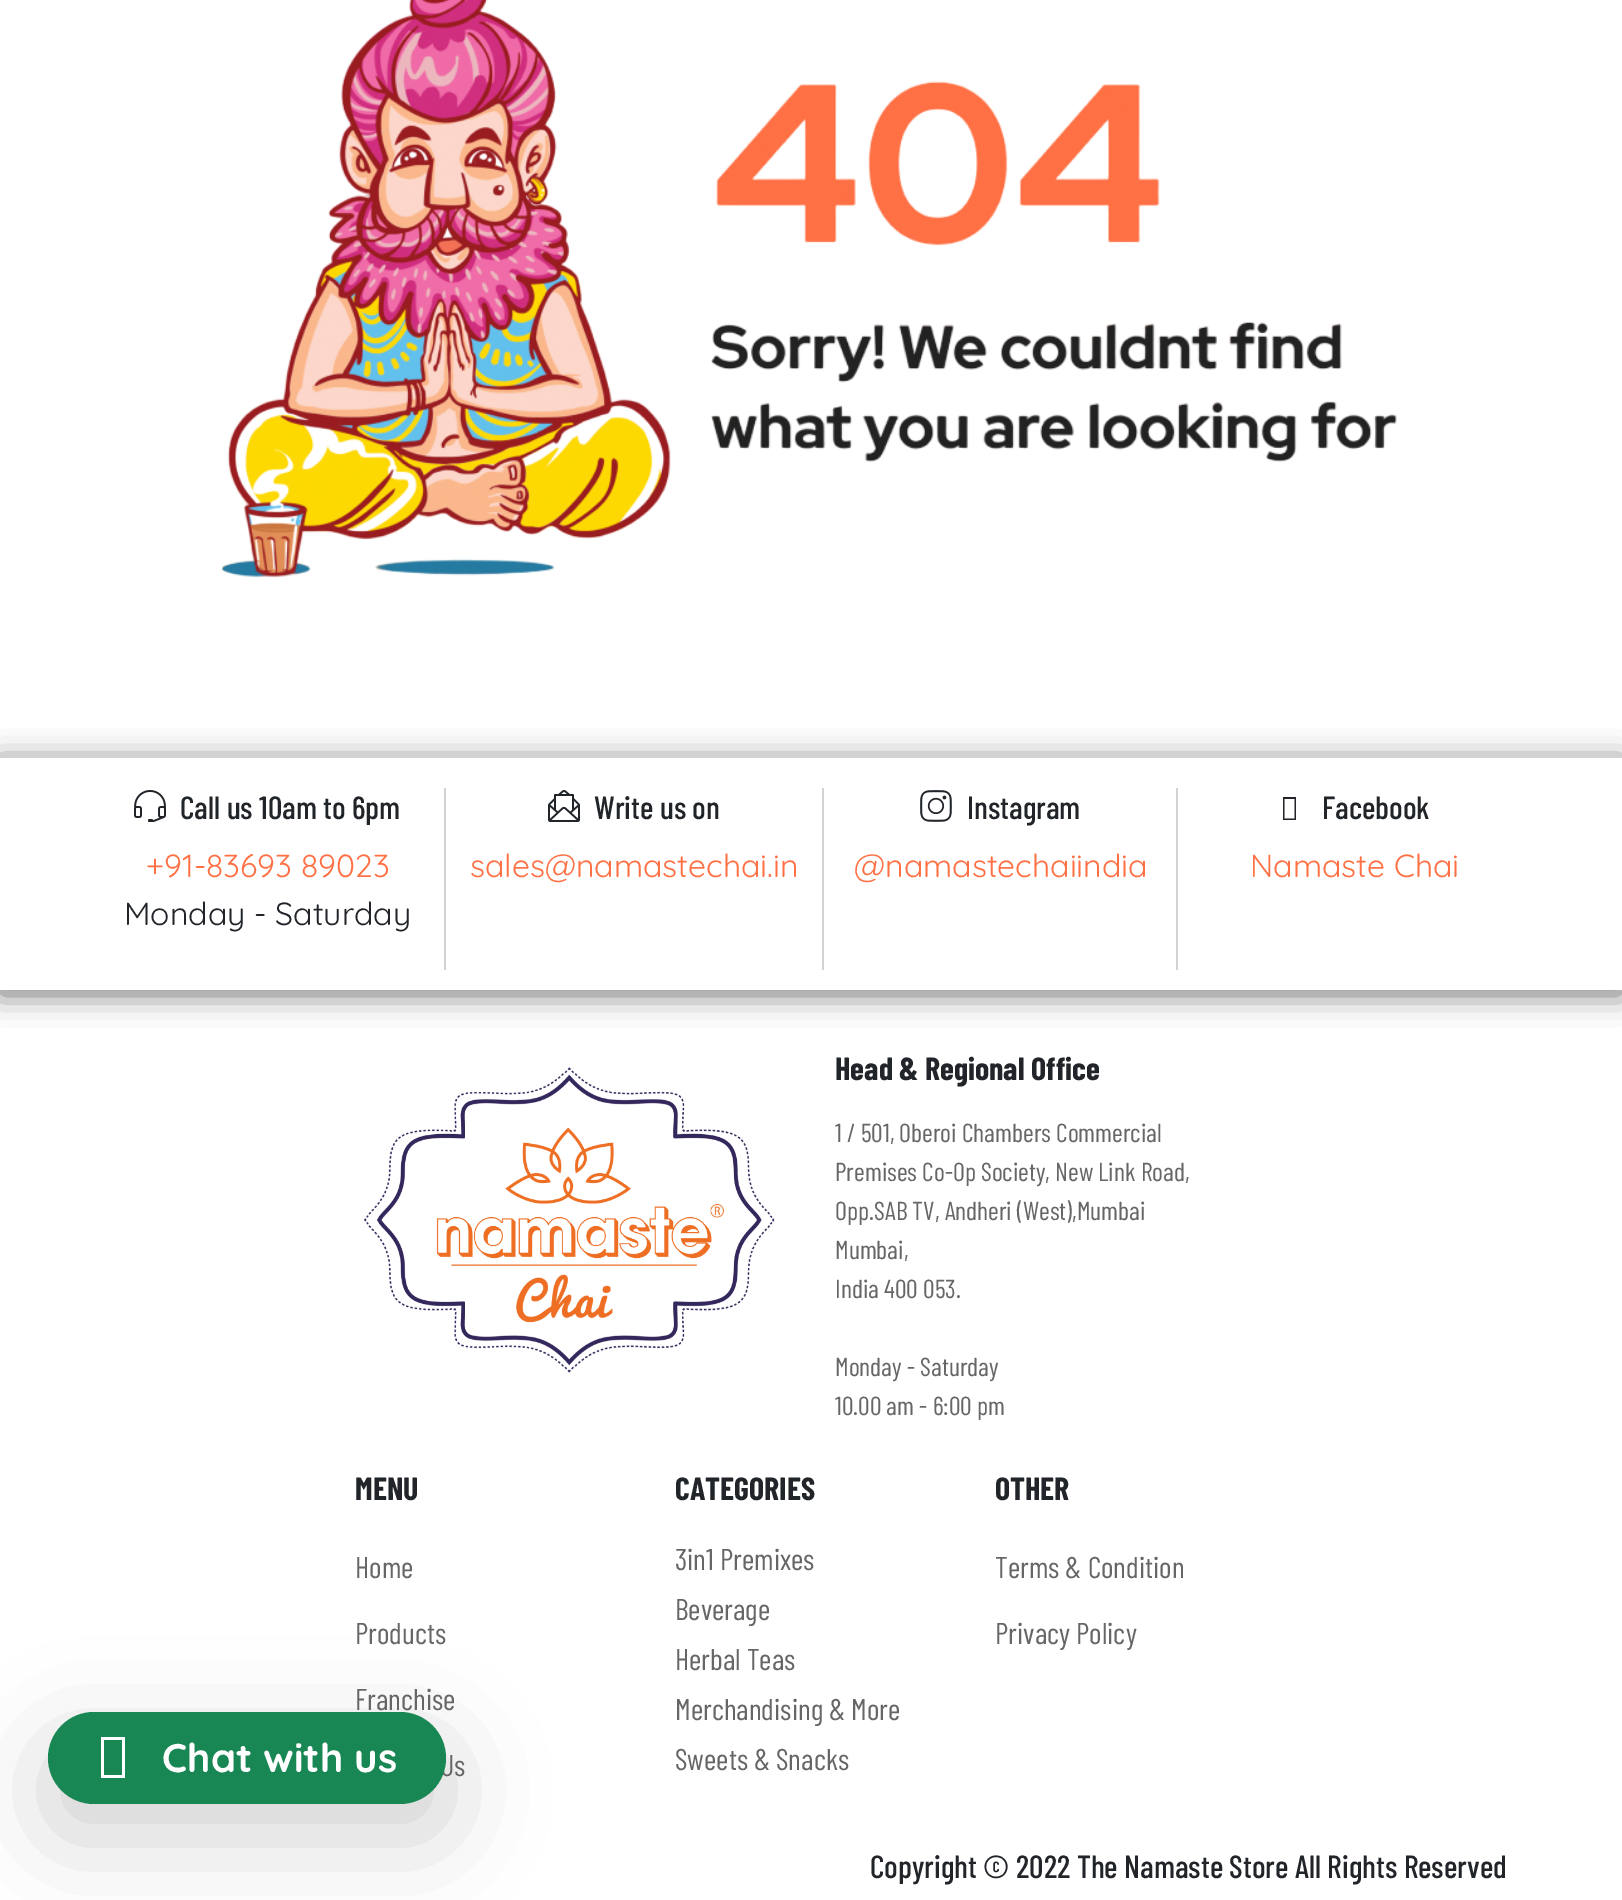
%!PS
<< /PageSize [1622 1900] /PageUsesTransparency true >> setpagedevice
/alpha { dup .setfillconstantalpha .setstrokeconstantalpha } def
/roundrect { 5 dict begin { /r /h /w /y /x } { exch def } forall
  x r add y moveto x w add y 2 copy h add r arct x w add y h add x 1 index r arct
  x y h add x y r arct x y 2 copy exch w add exch r arct closepath end } def
/shadow { 12 dict begin { /a /b /q /h /w /y /x } { exch def } forall gsave /was 0 def
  9 -2 -9 { dup b mul 4 div /e exch def 1 sub .425 mul 2.718 exch exp 1 add a .99 .min exch div /now exch def
    1 1 now sub 1 was sub div sub alpha /was now def
    w h .min e 2 mul add 0 gt { x e sub y e sub w e 2 mul add h e 2 mul add
      q e add b .6 mul add w h .min 2 div e add .min 0 .max roundrect fill } if } for grestore end } def
/picture { 5 dict begin { /h /w /y /x /name } { exch def } forall
  gsave x y translate w h scale
  w h 8 [w 0 0 h 0 0] name (r) file false 3 colorimage grestore end } def
0 .pushpdf14devicefilter
0 1900 translate 1 -1 scale
4 setmiterlimit
1 setgray
0 0 1622 1900 rectfill
(img1.rgb) 221 0 1176 578 picture
gsave
newpath 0 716 moveto 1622 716 lineto 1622 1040 lineto 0 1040 lineto closepath 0 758 moveto 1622 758 lineto 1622 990 lineto 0 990 lineto closepath eoclip newpath
0.4 setgray
0 762 1622 232 0 15 1 shadow
grestore
0.827 setgray
444 788 2 182 rectfill
(img2.rgb) 134 790 32 32 picture
/BarlowCondensed-Medium [32 0 0 -32 0 0] selectfont
0.129 0.145 0.161 setrgbcolor
180 819 moveto (Call us 10am to 6pm) show
/Quicksand-Regular [32 0 0 -32 0 0] selectfont
1 0.439 0.267 setrgbcolor
146 877 moveto (+91-83693 89023) show
0.129 0.145 0.161 setrgbcolor
124 925 moveto (Monday - Saturday) show
0.827 setgray
822 788 2 182 rectfill
(img3.rgb) 548 790 32 32 picture
/BarlowCondensed-Medium [32 0 0 -32 0 0] selectfont
0.129 0.145 0.161 setrgbcolor
594 819 moveto (Write us on) show
/Quicksand-Regular [32 0 0 -32 0 0] selectfont
1 0.439 0.267 setrgbcolor
470 877 moveto (sales@namastechai.in) show
0.827 setgray
1176 788 2 182 rectfill
(img4.rgb) 920 790 32 32 picture
/BarlowCondensed-Medium [32 0 0 -32 0 0] selectfont
0.129 0.145 0.161 setrgbcolor
967 819 moveto (Instagram) show
/Quicksand-Regular [32 0 0 -32 0 0] selectfont
1 0.439 0.267 setrgbcolor
854 877 moveto (@namastechaiindia) show
0.129 0.145 0.161 setrgbcolor
newpath 1283 820 moveto 1283 797 lineto 1296 797 lineto 1296 820 lineto closepath 1284.5 818.5 moveto 1294.5 818.5 lineto 1294.5 799 lineto 1284.5 799 lineto closepath fill
/BarlowCondensed-Medium [32 0 0 -32 0 0] selectfont
1322 819 moveto (Facebook) show
/Quicksand-Regular [32 0 0 -32 0 0] selectfont
1 0.439 0.267 setrgbcolor
1250 877 moveto (Namaste Chai) show
0 setgray
48 1744 398 92 46 48 0.18 shadow
/BarlowCondensed-Regular [30 0 0 -30 0 0] selectfont
0.4 setgray
440 1776 moveto (Us) show
0.098 0.529 0.329 setrgbcolor
48 1712 398 92 46 roundrect fill
1 setgray
newpath 101 1778 moveto 101 1737 lineto 125 1737 lineto 125 1778 lineto closepath 104 1775 moveto 122 1775 lineto 122 1740 lineto 104 1740 lineto closepath fill
/Quicksand-Bold [40 0 0 -40 0 0] selectfont
162 1772 moveto (Chat with us) show
(img5.rgb) 364 1067 411 306 picture
/BarlowCondensed-Bold [32 0 0 -32 0 0] selectfont
0.129 0.145 0.161 setrgbcolor
835 1080 moveto (Head & Regional Office) show
/BarlowCondensed-Regular [26 0 0 -26 0 0] selectfont
0.4 setgray
835 1142 moveto (1 / 501, Oberoi Chambers Commercial) show
835 1181 moveto (Premises Co-Op Society, New Link Road,) show
835 1220 moveto (Opp.SAB TV, Andheri \(West\),Mumbai) show
835 1259 moveto (Mumbai,) show
835 1298 moveto (India 400 053.) show
835 1376 moveto (Monday - Saturday) show
835 1415 moveto (10.00 am - 6:00 pm) show
/BarlowCondensed-Bold [32 0 0 -32 0 0] selectfont
0.129 0.145 0.161 setrgbcolor
355 1500 moveto (MENU) show
/BarlowCondensed-Regular [30 0 0 -30 0 0] selectfont
0.4 setgray
355 1578 moveto (Home) show
355 1644 moveto (Products) show
355 1710 moveto (Franchise) show
/BarlowCondensed-Bold [32 0 0 -32 0 0] selectfont
0.129 0.145 0.161 setrgbcolor
675 1500 moveto (CATEGORIES) show
/BarlowCondensed-Regular [30 0 0 -30 0 0] selectfont
0.4 setgray
675 1570 moveto (3in1 Premixes) show
675 1620 moveto (Beverage) show
675 1670 moveto (Herbal Teas) show
675 1720 moveto (Merchandising & More) show
675 1770 moveto (Sweets & Snacks) show
/BarlowCondensed-Bold [32 0 0 -32 0 0] selectfont
0.129 0.145 0.161 setrgbcolor
995 1500 moveto (OTHER) show
/BarlowCondensed-Regular [30 0 0 -30 0 0] selectfont
0.4 setgray
995 1578 moveto (Terms & Condition) show
995 1644 moveto (Privacy Policy) show
/BarlowCondensed-Medium [32 0 0 -32 0 0] selectfont
0.129 0.145 0.161 setrgbcolor
870 1878 moveto (Copyright © 2022 The Namaste Store All Rights Reserved) show
.poppdf14devicefilter showpage
